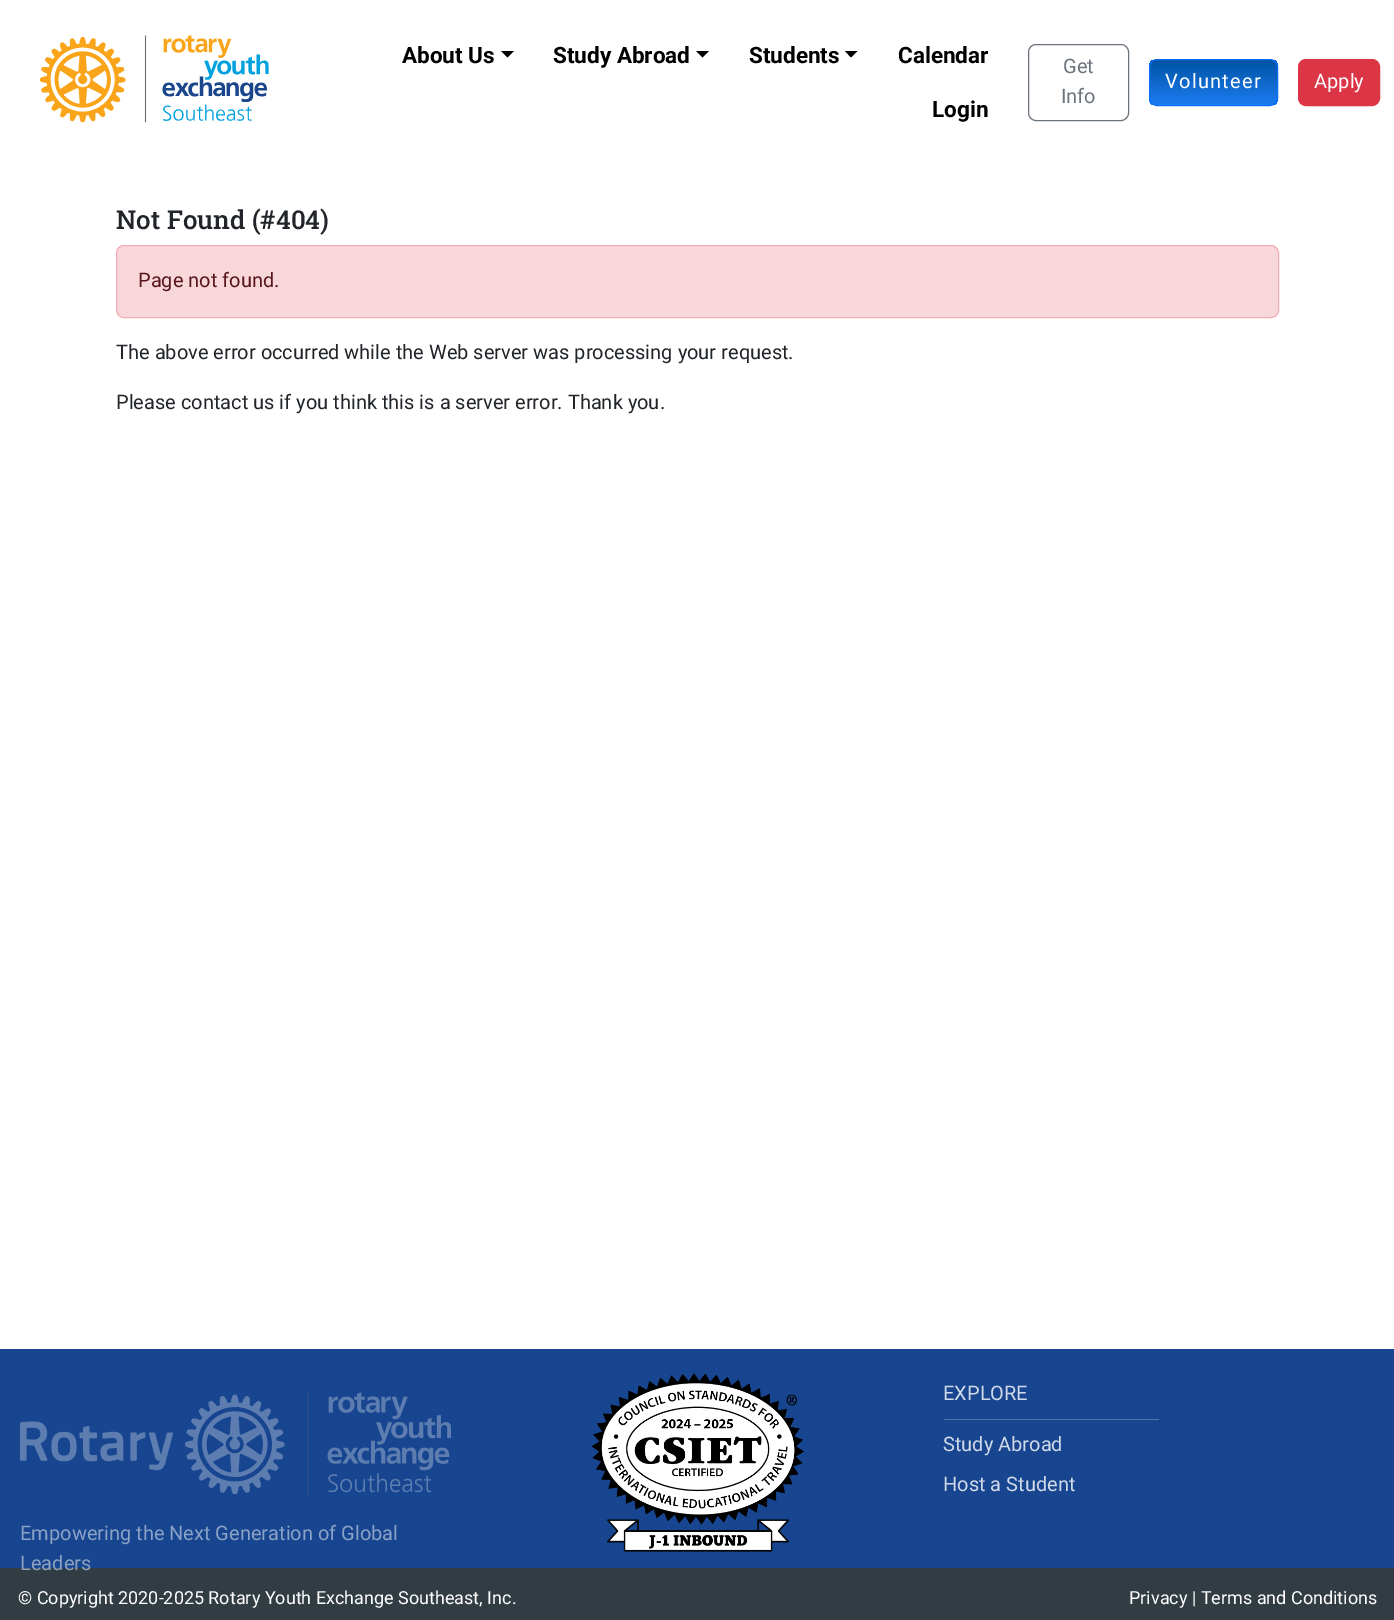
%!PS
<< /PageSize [1394 1620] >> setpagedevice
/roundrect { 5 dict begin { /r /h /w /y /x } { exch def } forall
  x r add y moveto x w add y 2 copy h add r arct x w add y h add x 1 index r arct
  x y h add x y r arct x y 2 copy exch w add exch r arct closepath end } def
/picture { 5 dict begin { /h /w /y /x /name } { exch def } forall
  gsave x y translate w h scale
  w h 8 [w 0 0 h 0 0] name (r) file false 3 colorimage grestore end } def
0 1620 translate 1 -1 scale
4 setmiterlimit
1 setgray
0 0 1394 1620 rectfill
(img1.rgb) 40 35 229 88 picture
/Roboto-Bold [22.5 0 0 -22.5 0 0] selectfont
0 setgray
402 63 moveto (About Us) show
newpath 501 51 moveto 514 51 lineto 507.5 57.5 lineto closepath fill
553 63 moveto (Study Abroad) show
newpath 696 51 moveto 709 51 lineto 702.5 57.5 lineto closepath fill
749 63 moveto (Students) show
newpath 845 51 moveto 857.5 51 lineto 851 57.5 lineto closepath fill
898 63 moveto (Calendar) show
932 117 moveto (Login) show
0.424 0.459 0.49 setrgbcolor
1028.5 44.5 100 76 7.5 roundrect stroke
/Roboto-Regular [20 0 0 -20 0 0] selectfont
1063 73 moveto (Get) show
1061 103 moveto (Info) show
gsave
1149 59 129 47 8 roundrect clip newpath
gsave newpath 1149 60 moveto 1278 60 lineto 1278 105 lineto 1149 105 lineto closepath clip newpath
<< /ShadingType 2 /ColorSpace /DeviceRGB /Coords [1213 60 1213 105] /Extend [true true] /Function << /FunctionType 2 /Domain [0 1] /C0 [0 0.329 0.643] /C1 [0.114 0.482 0.941] /N 1 >> >> shfill grestore
grestore
0.051 0.431 0.992 setrgbcolor
1149.5 59.5 128 46 7.5 roundrect stroke
1 setgray
1165 88 moveto 1.25 0 (Volunteer) ashow
0.863 0.208 0.271 setrgbcolor
1298.5 59.5 81 46 7.5 roundrect gsave fill grestore
stroke
1 setgray
1314 88 moveto (Apply) show
/RobotoSlab-Medium [26 0 0 -26 0 0] selectfont
0.129 0.145 0.161 setrgbcolor
116 229 moveto (Not Found \(#404\)) show
0.973 0.843 0.855 setrgbcolor
116.5 245.5 1162 72 7.5 roundrect gsave fill grestore
0.945 0.682 0.71 setrgbcolor
stroke
/Roboto-Regular [20 0 0 -20 0 0] selectfont
0.345 0.082 0.11 setrgbcolor
138 287 moveto (Page not found.) show
0.129 0.145 0.161 setrgbcolor
116 359 moveto (The above error occurred while the Web server was processing your request.) show
116 409 moveto (Please contact us if you think this is a server error. Thank you.) show
0.09 0.271 0.561 setrgbcolor
0 1349 1394 219 rectfill
(img2.rgb) 591 1373 213 179 picture
0.82 0.855 0.914 setrgbcolor
943 1400 moveto (EXPLORE) show
0.318 0.455 0.671 setrgbcolor
944 1419 215 1 rectfill
0.82 0.855 0.914 setrgbcolor
943 1451 moveto (Study Abroad) show
943 1491 moveto (Host a Student) show
(img3.rgb) 20 1392 431 103 picture
0.545 0.635 0.78 setrgbcolor
20 1540 moveto (Empowering the Next Generation of Global) show
0.192 0.235 0.263 setrgbcolor
0 1568 1394 52 rectfill
0.557 0.631 0.745 setrgbcolor
20 1570 moveto (Leaders) show
/Roboto-Regular [18 0 0 -18 0 0] selectfont
1 setgray
18 1604 moveto (© Copyright 2020-2025 Rotary Youth Exchange Southeast, Inc.) show
1129 1604 moveto (Privacy | Terms and Conditions) show
showpage
